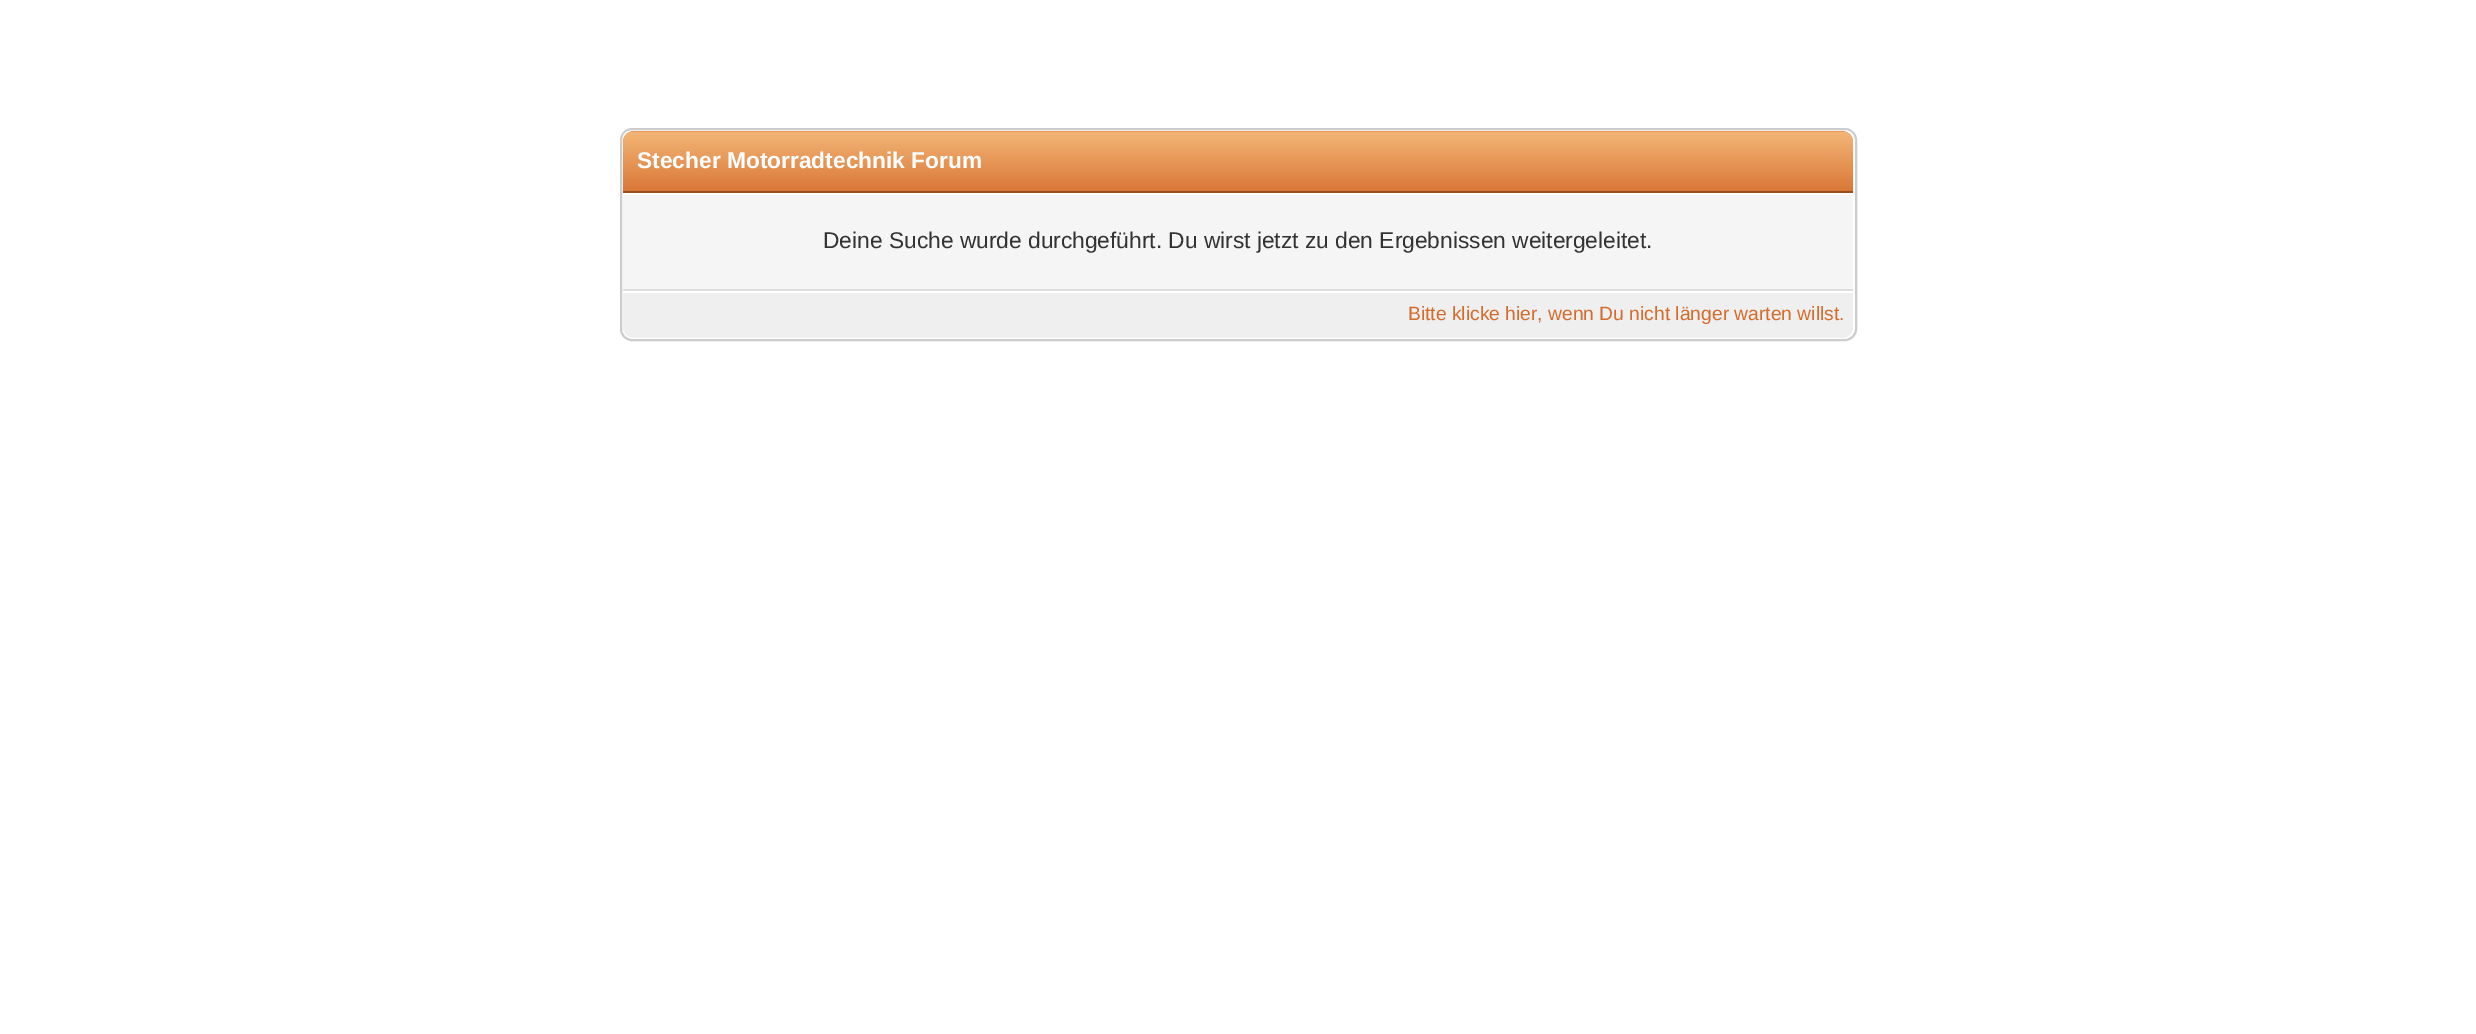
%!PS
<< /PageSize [2476 1034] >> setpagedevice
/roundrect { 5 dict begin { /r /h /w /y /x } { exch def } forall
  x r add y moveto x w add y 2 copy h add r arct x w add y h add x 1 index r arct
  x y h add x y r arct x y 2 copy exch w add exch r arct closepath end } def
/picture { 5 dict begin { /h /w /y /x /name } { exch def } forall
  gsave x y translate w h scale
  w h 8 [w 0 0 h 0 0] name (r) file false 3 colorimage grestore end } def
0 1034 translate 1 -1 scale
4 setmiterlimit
1 setgray
0 0 2476 1034 rectfill
0.8 setgray
2 setlinewidth
621 129 1235 211 11 roundrect stroke
0.835 0.424 0.173 setrgbcolor
newpath 634 131 moveto 1842 131 lineto 1848 131 1853 136 1853 142 curveto 1853 193 lineto 623 193 lineto 623 142 lineto 623 136 628 131 634 131 curveto closepath fill
(img1.rgb) 623 131 1231 61 picture
0.604 0.306 0.125 setrgbcolor
623 191 1230 2 rectfill
/LiberationSans-Bold [22.75 0 0 -22.75 0 0] selectfont
1 setgray
637 168 moveto (Stecher Motorradtechnik Forum) show
0.961 setgray
623 195 1230 94 rectfill
0.867 setgray
623 289 1230 2 rectfill
/LiberationSans-Regular [22.75 0 0 -22.75 0 0] selectfont
0.2 setgray
823 248 moveto (Deine Suche wurde durchgeführt. Du wirst jetzt zu den Ergebnissen weitergeleitet.) show
0.937 setgray
newpath 623 291 moveto 1853 291 lineto 1853 327 lineto 1853 333 1848 338 1842 338 curveto 634 338 lineto 628 338 623 333 623 327 curveto closepath fill
1 setgray
623 291 1230 2 rectfill
/LiberationSans-Regular [19.25 0 0 -19.25 0 0] selectfont
0.835 0.424 0.173 setrgbcolor
1408 320 moveto (Bitte klicke hier, wenn Du nicht länger warten willst.) show
showpage
